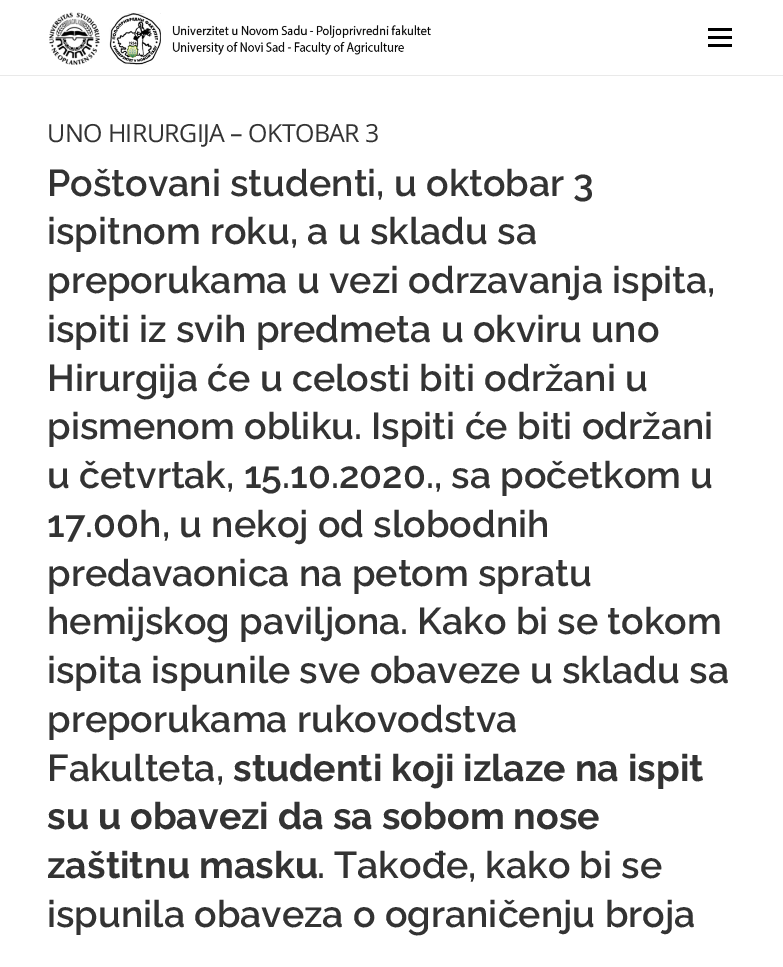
%!PS
<< /PageSize [783 967] >> setpagedevice
/picture { 5 dict begin { /h /w /y /x /name } { exch def } forall
  gsave x y translate w h scale
  w h 8 [w 0 0 h 0 0] name (r) file false 3 colorimage grestore end } def
0 967 translate 1 -1 scale
4 setmiterlimit
1 setgray
0 0 783 967 rectfill
(img1.rgb) 49 12 382 53 picture
0 setgray
708 36 24 3 rectfill
708 28 24 3 rectfill
708 44 24 3 rectfill
0.914 setgray
0 75 783 1 rectfill
/OpenSans-Regular [25 0 0 -25 0 0] selectfont
0.2 setgray
47 142 moveto -0.6 0 (UNO HIRURGIJA – OKTOBAR 3) ashow
/Raleway-SemiBold [37.5 0 0 -37.5 0 0] selectfont
47 196 moveto (Poštovani studenti, u oktobar 3) show
47 244 moveto (ispitnom roku, a u skladu sa) show
47 293 moveto (preporukama u vezi odrzavanja ispita,) show
47 342 moveto (ispiti iz svih predmeta u okviru uno) show
47 391 moveto (Hirurgija će u celosti biti održani u) show
47 439 moveto (pismenom obliku. Ispiti će biti održani) show
47 488 moveto (u četvrtak, 15.10.2020., sa početkom u) show
47 537 moveto (17.00h, u nekoj od slobodnih) show
47 586 moveto (predavaonica na petom spratu) show
47 634 moveto (hemijskog paviljona. Kako bi se tokom) show
47 683 moveto (ispita ispunile sve obaveze u skladu sa) show
47 732 moveto (preporukama rukovodstva) show
47 781 moveto (Fakulteta,) show
/Raleway-Bold [37.5 0 0 -37.5 0 0] selectfont
233 781 moveto (studenti koji izlaze na ispit) show
47 829 moveto (su u obavezi da sa sobom nose) show
47 878 moveto (zaštitnu masku) show
/Raleway-SemiBold [37.5 0 0 -37.5 0 0] selectfont
317 878 moveto (. Takođe, kako bi se) show
47 927 moveto (ispunila obaveza o ograničenju broja) show
showpage
